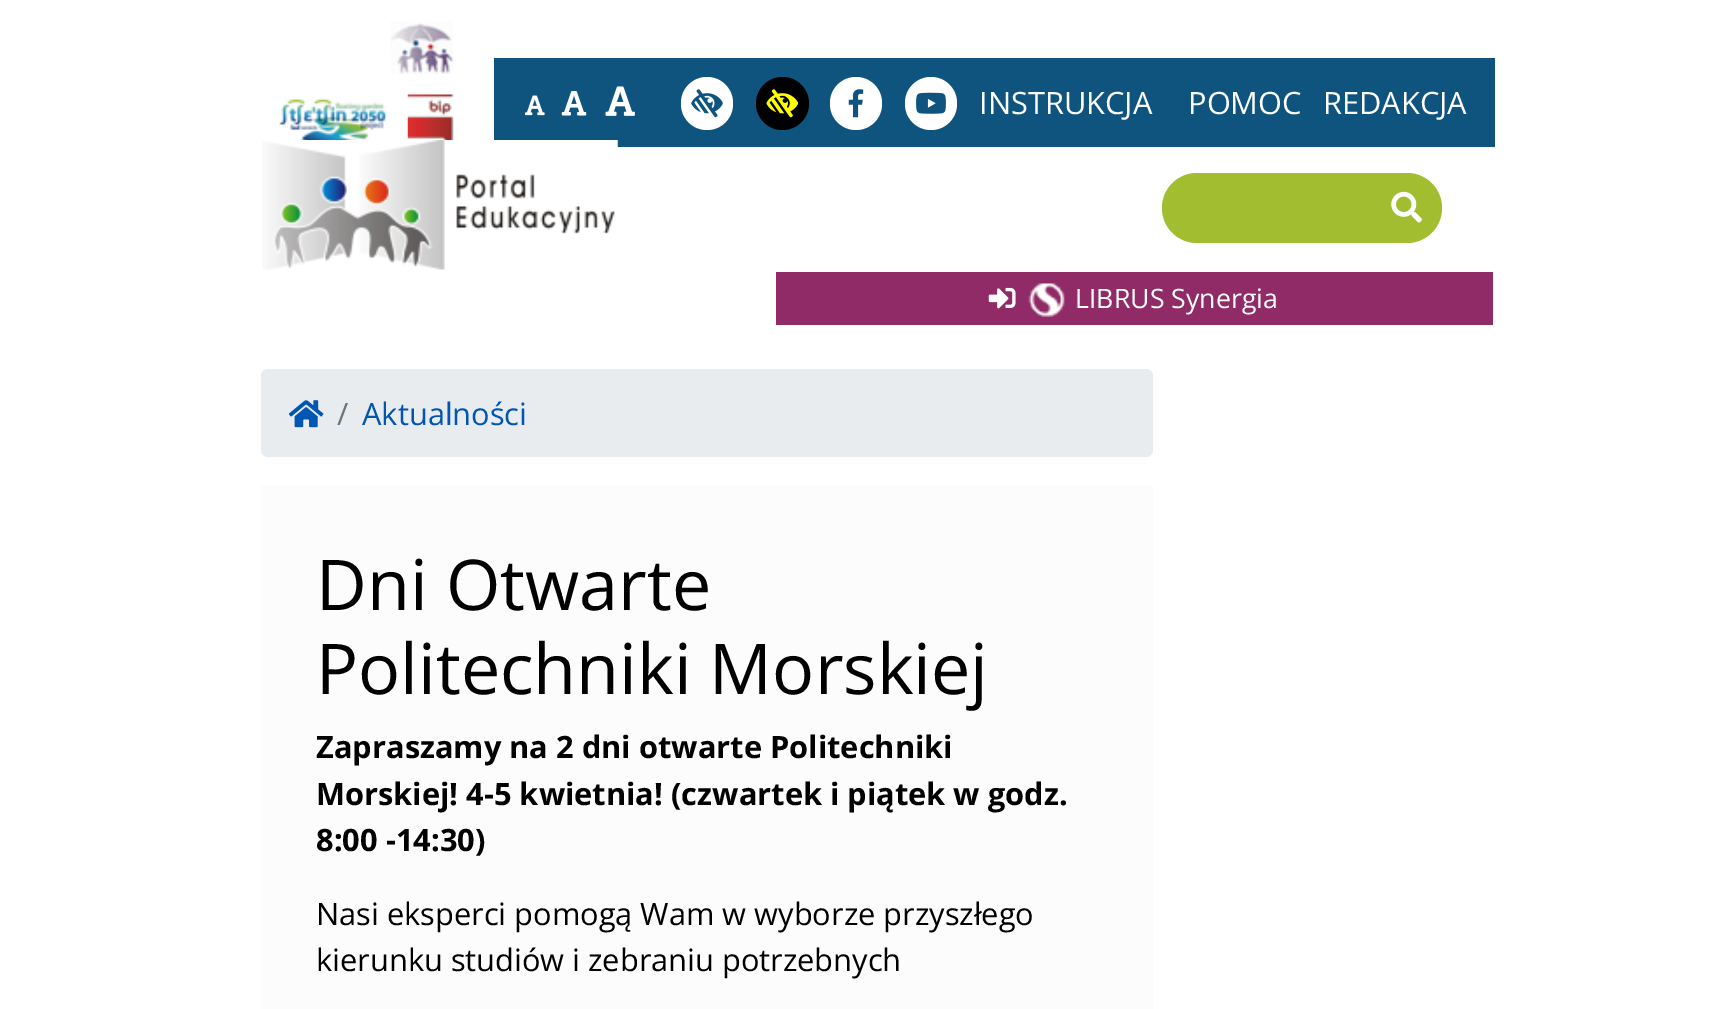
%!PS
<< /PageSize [1726 1009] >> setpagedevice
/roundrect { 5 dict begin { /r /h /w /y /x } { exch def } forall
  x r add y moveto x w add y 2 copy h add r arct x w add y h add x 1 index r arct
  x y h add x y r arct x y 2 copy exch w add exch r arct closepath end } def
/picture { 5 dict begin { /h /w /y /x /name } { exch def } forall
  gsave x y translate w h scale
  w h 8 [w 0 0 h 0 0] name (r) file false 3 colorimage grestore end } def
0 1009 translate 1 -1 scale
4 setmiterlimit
1 setgray
0 0 1726 1009 rectfill
(img1.rgb) 390 21 64 54 picture
(img2.rgb) 279 98 108 42 picture
(img3.rgb) 407 94 47 46 picture
0.055 0.329 0.494 setrgbcolor
494 58 1001 89 rectfill
(img4.rgb) 525 95 20 21 picture
(img5.rgb) 561 91 26 25 picture
(img6.rgb) 605 86 30 30 picture
1 setgray
681 77 52 53 26 roundrect fill
(img7.rgb) 691 89 32 29 picture
0 setgray
newpath 782.5 103.5 26.5 0 360 arc closepath fill
(img8.rgb) 766 89 32 29 picture
1 setgray
830 77 52 53 26 roundrect fill
(img9.rgb) 848 89 16 29 picture
905 77 52 53 26 roundrect fill
(img10.rgb) 916 92 30 22 picture
/OpenSans-Regular [30.8 0 0 -30.8 0 0] selectfont
979 114 moveto (INSTRUKCJA) show
1188 114 moveto (POMOC) show
1323 114 moveto (REDAKCJA) show
(img11.rgb) 262 140 356 130 picture
0.635 0.741 0.188 setrgbcolor
1162 173 280 70 35 roundrect fill
(img12.rgb) 1391 191 31 32 picture
0.569 0.169 0.404 setrgbcolor
776 272 717 53 rectfill
(img13.rgb) 988 287 28 22 picture
(img14.rgb) 1028 283 37 34 picture
/OpenSans-Regular [26.75 0 0 -26.75 0 0] selectfont
1 setgray
1075 308 moveto (LIBRUS Synergia) show
0.914 0.925 0.937 setrgbcolor
261 369 892 88 7 roundrect fill
(img15.rgb) 288 400 36 28 picture
/OpenSans-Regular [30.8 0 0 -30.8 0 0] selectfont
0.424 0.459 0.49 setrgbcolor
337 425 moveto (/) show
0 0.337 0.702 setrgbcolor
362 425 moveto (Aktualności) show
0.988 setgray
261 485 892 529 5 roundrect fill
/OpenSans-Regular [70 0 0 -70 0 0] selectfont
0 setgray
316 610 moveto (Dni Otwarte) show
316 694 moveto (Politechniki Morskiej) show
/OpenSans-Bold [30.8 0 0 -30.8 0 0] selectfont
316 758 moveto (Zapraszamy na 2 dni otwarte Politechniki) show
316 805 moveto (Morskiej! 4-5 kwietnia! \(czwartek i piątek w godz.) show
316 851 moveto (8:00 -14:30\)) show
/OpenSans-Regular [30.8 0 0 -30.8 0 0] selectfont
316 925 moveto (Nasi eksperci pomogą Wam w wyborze przyszłego) show
316 971 moveto (kierunku studiów i zebraniu potrzebnych) show
showpage
